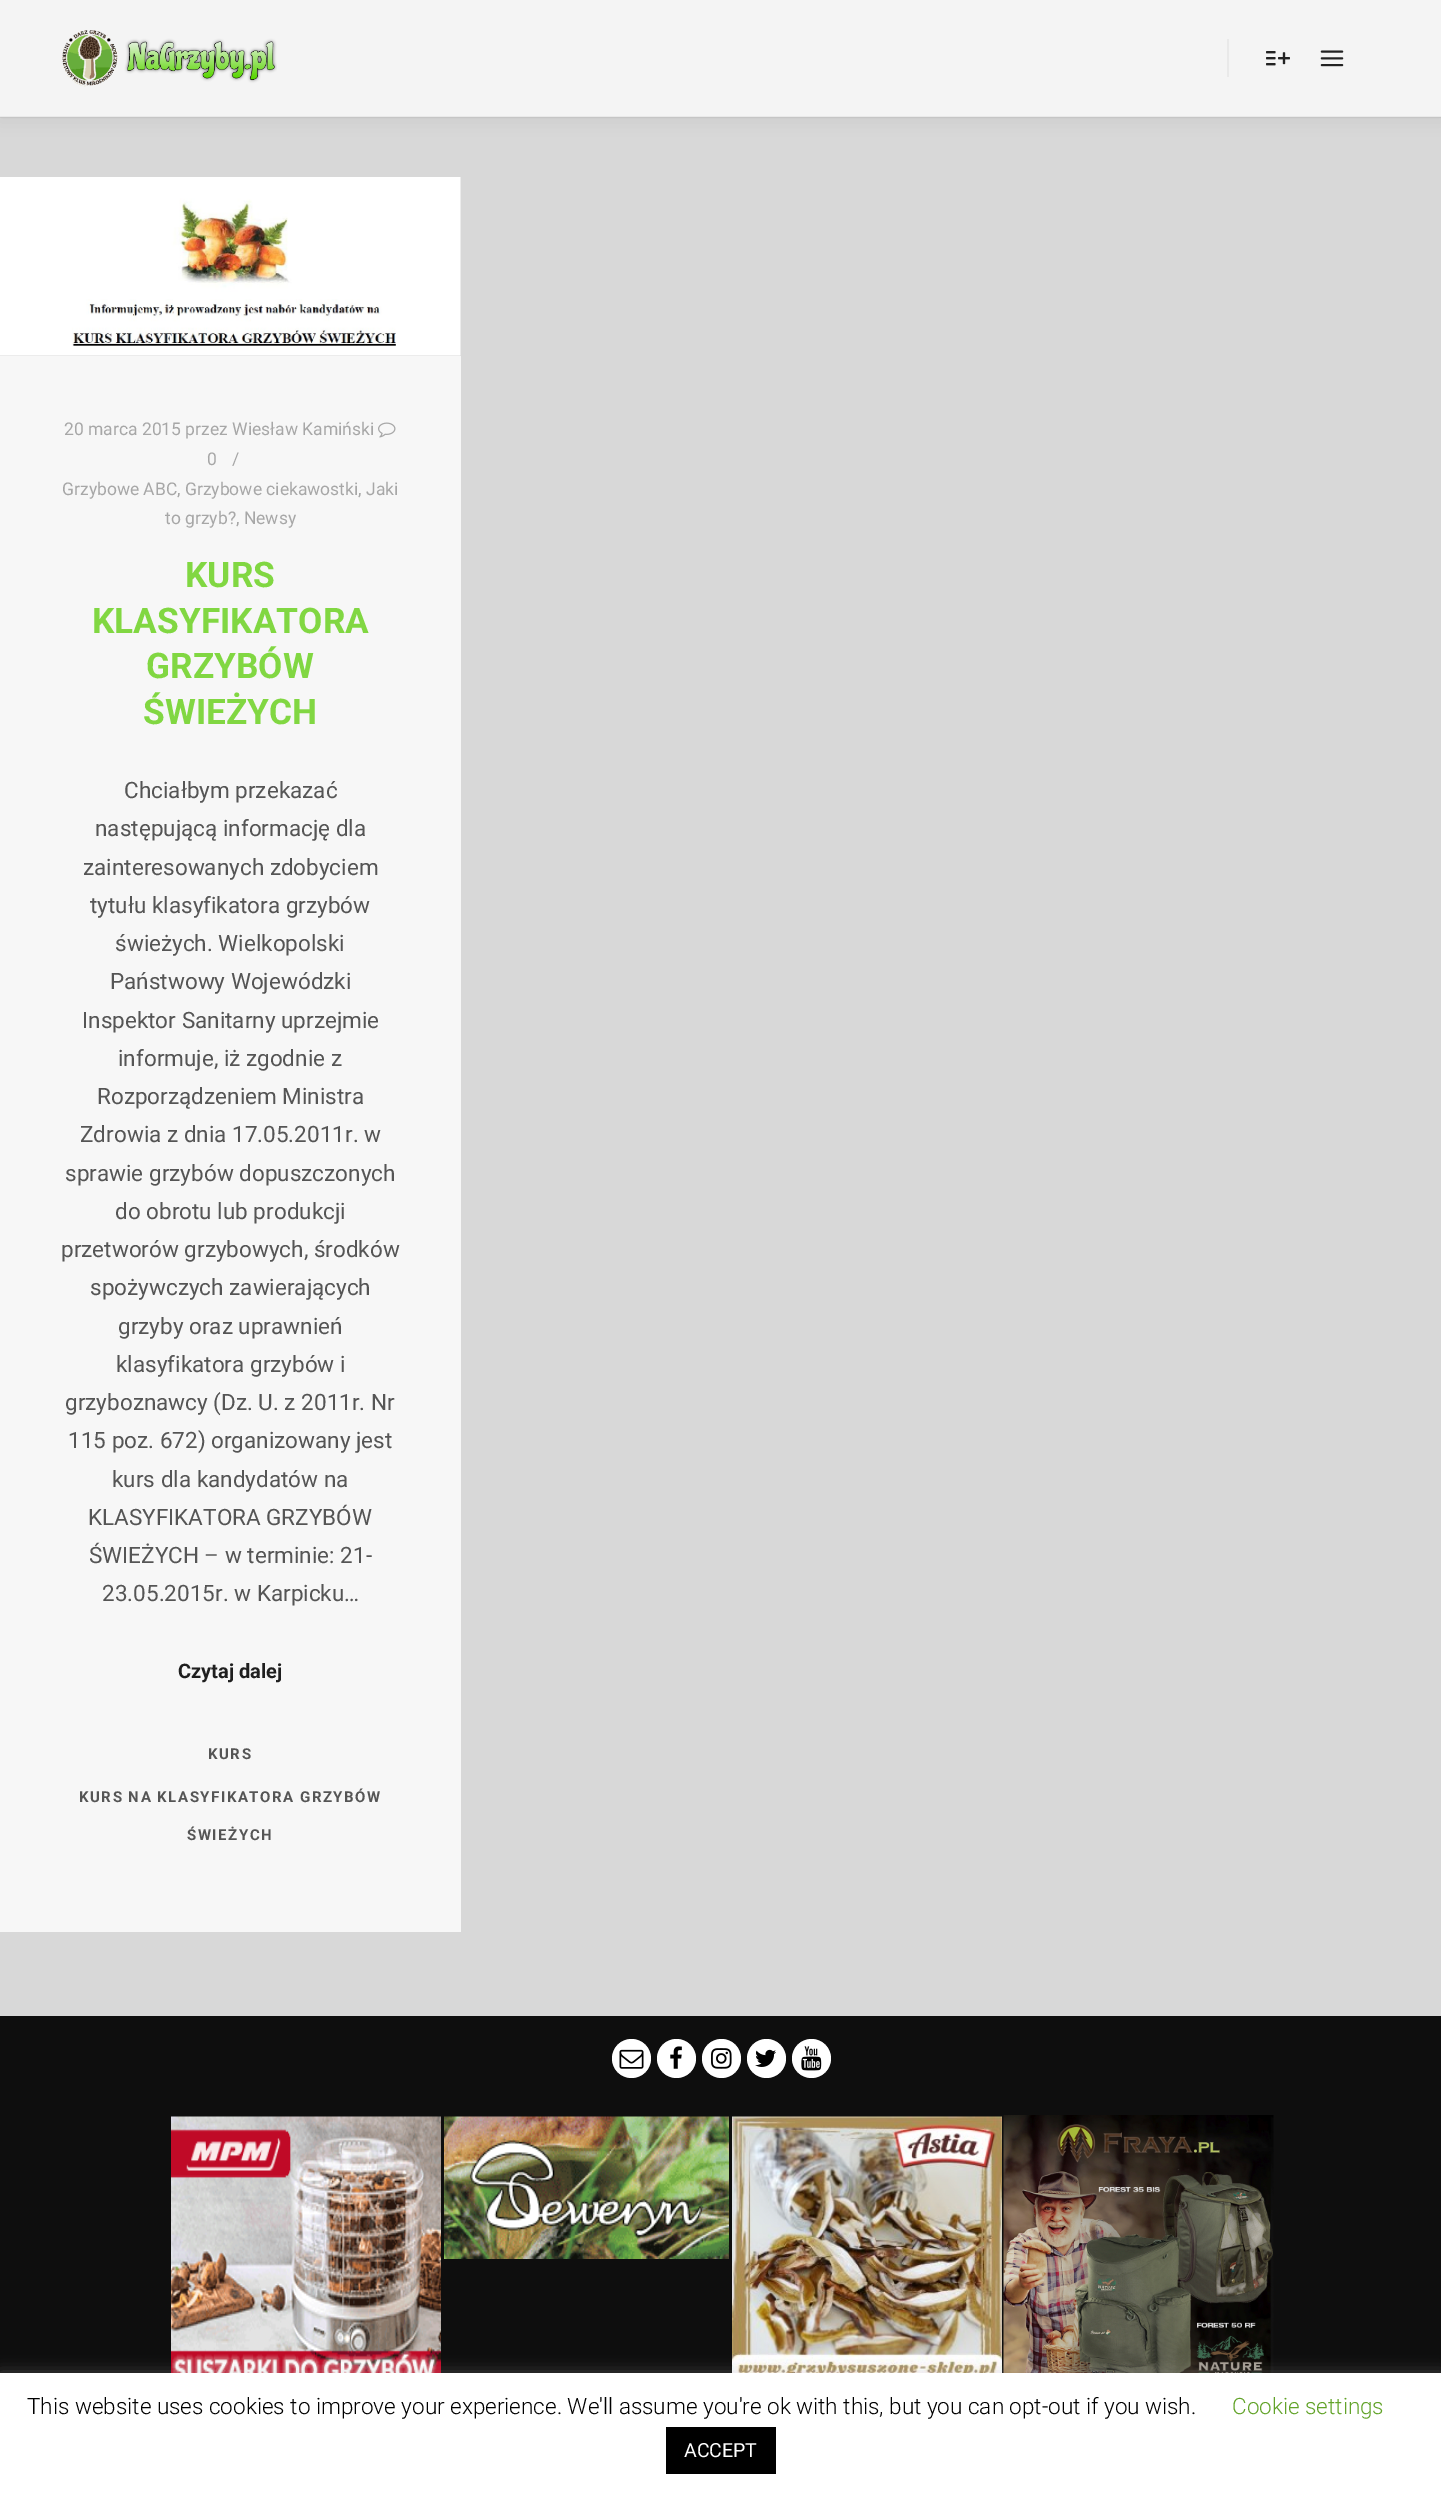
%!PS
<< /PageSize [1441 2499] /PageUsesTransparency true >> setpagedevice
/alpha { dup .setfillconstantalpha .setstrokeconstantalpha } def
/roundrect { 5 dict begin { /r /h /w /y /x } { exch def } forall
  x r add y moveto x w add y 2 copy h add r arct x w add y h add x 1 index r arct
  x y h add x y r arct x y 2 copy exch w add exch r arct closepath end } def
/shadow { 12 dict begin { /a /b /q /h /w /y /x } { exch def } forall gsave /was 0 def
  9 -2 -9 { dup b mul 4 div /e exch def 1 sub .425 mul 2.718 exch exp 1 add a .99 .min exch div /now exch def
    1 1 now sub 1 was sub div sub alpha /was now def
    w h .min e 2 mul add 0 gt { x e sub y e sub w e 2 mul add h e 2 mul add
      q e add b .6 mul add w h .min 2 div e add .min 0 .max roundrect fill } if } for grestore end } def
/picture { 5 dict begin { /h /w /y /x /name } { exch def } forall
  gsave x y translate w h scale
  w h 8 [w 0 0 h 0 0] name (r) file false 3 colorimage grestore end } def
0 .pushpdf14devicefilter
0 2499 translate 1 -1 scale
4 setmiterlimit
0.847 setgray
0 0 1441 2499 rectfill
0 setgray
0 0 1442 117 0 9 0.09 shadow
0.957 setgray
0 0 1441 117 rectfill
0.06 alpha
0.227 setgray
0 116 1441 2 rectfill
1 alpha
(img1.rgb) 62 30 215 57 picture
0.914 setgray
1227 39 2 38 rectfill
(img2.rgb) 1266 51 24 15 picture
(img3.rgb) 1320 50 24 17 picture
(img4.rgb) 0 177 461 179 picture
0.969 setgray
0 356 461 1576 rectfill
/Roboto-Regular [17.5 0 0 -17.5 0 0] selectfont
0.655 setgray
64 435 moveto (20 marca 2015 przez Wiesław Kamiński) show
(img5.rgb) 378 422 18 16 picture
207 465 moveto (0) show
232 465 moveto (/) show
62 495 moveto (Grzybowe ABC, Grzybowe ciekawostki, Jaki) show
165 524 moveto (to grzyb?, Newsy) show
/Roboto-Bold [35.25 0 0 -35.25 0 0] selectfont
0.506 0.843 0.259 setrgbcolor
185 587 moveto (KURS) show
92 633 moveto (KLASYFIKATORA) show
146 678 moveto (GRZYBÓW) show
143 724 moveto (ŚWIEŻYCH) show
/Roboto-Regular [22.5 0 0 -22.5 0 0] selectfont
0.333 setgray
124 798 moveto (Chciałbym przekazać) show
95 836 moveto (następującą informację dla) show
83 875 moveto (zainteresowanych zdobyciem) show
90 913 moveto (tytułu klasyfikatora grzybów) show
115 951 moveto (świeżych. Wielkopolski) show
110 989 moveto (Państwowy Wojewódzki) show
82 1028 moveto (Inspektor Sanitarny uprzejmie) show
118 1066 moveto (informuje, iż zgodnie z) show
97 1104 moveto (Rozporządzeniem Ministra) show
80 1142 moveto (Zdrowia z dnia 17.05.2011r. w) show
65 1181 moveto (sprawie grzybów dopuszczonych) show
115 1219 moveto (do obrotu lub produkcji) show
61 1257 moveto (przetworów grzybowych, środków) show
90 1295 moveto (spożywczych zawierających) show
118 1334 moveto (grzyby oraz uprawnień) show
116 1372 moveto (klasyfikatora grzybów i) show
65 1410 moveto (grzyboznawcy \(Dz. U. z 2011r. Nr) show
68 1448 moveto (115 poz. 672\) organizowany jest) show
112 1487 moveto (kurs dla kandydatów na) show
88 1525 moveto (KLASYFIKATORA GRZYBÓW) show
89 1563 moveto (ŚWIEŻYCH – w terminie: 21-) show
102 1601 moveto (23.05.2015r. w Karpicku…) show
/Roboto-Bold [20 0 0 -20 0 0] selectfont
0.122 setgray
178 1678 moveto (Czytaj dalej) show
/Roboto-Bold [15 0 0 -15 0 0] selectfont
0.333 setgray
208 1759 moveto 1.5 0 (KURS) ashow
79 1802 moveto 1.5 0 (KURS NA KLASYFIKATORA GRZYBÓW) ashow
187 1840 moveto 1.5 0 (ŚWIEŻYCH) ashow
0.055 setgray
0 2016 1441 357 rectfill
1 setgray
newpath 631.5 2058.5 19.5 0 360 arc closepath fill
(img6.rgb) 619 2049 25 20 picture
newpath 676.5 2058.5 19.5 0 360 arc closepath fill
(img7.rgb) 670 2046 12 23 picture
newpath 721.5 2058.5 19.5 0 360 arc closepath fill
(img8.rgb) 711 2048 21 21 picture
newpath 766.5 2058.5 19.5 0 360 arc closepath fill
(img9.rgb) 755 2049 21 18 picture
newpath 811.5 2058.5 19.5 0 360 arc closepath fill
(img10.rgb) 801 2046 21 25 picture
(img11.rgb) 171 2116 270 257 picture
(img12.rgb) 444 2116 285 143 picture
(img13.rgb) 732 2116 270 257 picture
(img14.rgb) 1003 2115 271 258 picture
0.675 0.671 0.671 setrgbcolor
0 2372 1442 126 0 7.5 0.3 shadow
1 setgray
0 2373 1441 126 rectfill
/Roboto-Light [22.5 0 0 -22.5 0 0] selectfont
0 setgray
27 2414 moveto (This website uses cookies to improve your experience. We'll assume you're ok with this, but you can opt-out if you wish.) show
0.384 0.639 0.161 setrgbcolor
1232 2414 moveto (Cookie settings) show
0 setgray
666 2427 110 47 rectfill
/Roboto-Regular [19.5 0 0 -19.5 0 0] selectfont
1 setgray
684 2457 moveto (ACCEPT) show
.poppdf14devicefilter showpage
